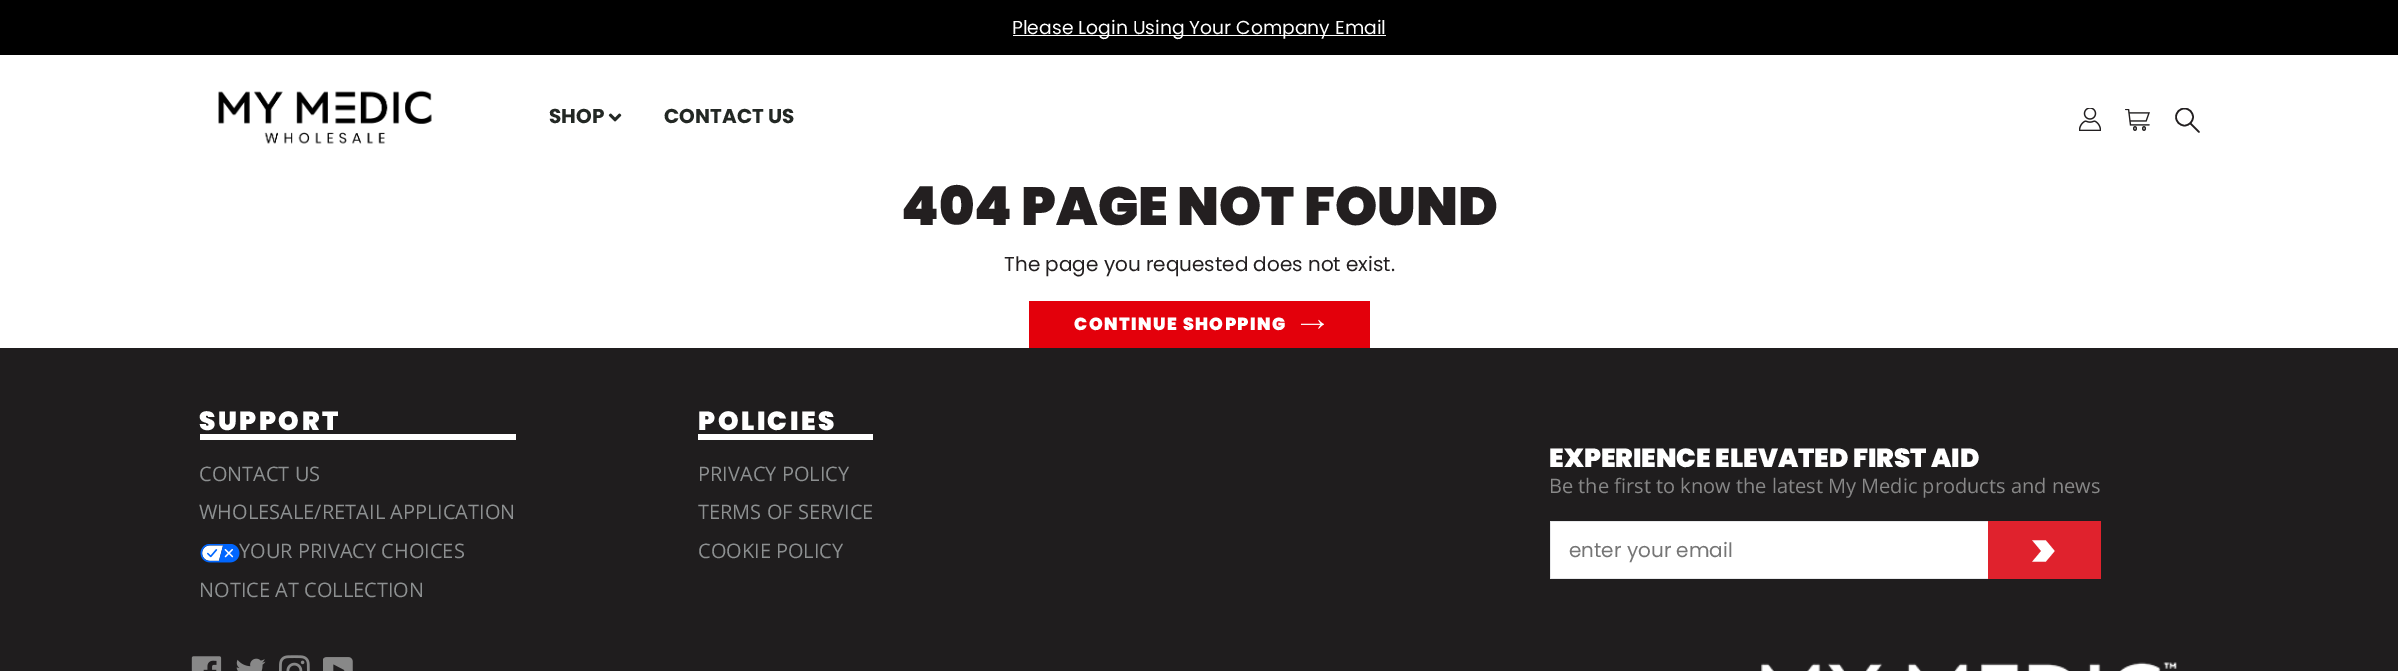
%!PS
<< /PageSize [2398 671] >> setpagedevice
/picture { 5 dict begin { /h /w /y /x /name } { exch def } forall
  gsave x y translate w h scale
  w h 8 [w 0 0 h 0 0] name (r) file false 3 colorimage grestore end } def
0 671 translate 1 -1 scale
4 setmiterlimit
1 setgray
0 0 2398 671 rectfill
0 setgray
0 0 2398 55 rectfill
1 setgray
1013 35 373 1 rectfill
/Poppins-Regular [18.75 0 0 -18.75 0 0] selectfont
1012 34 moveto (Please Login Using Your Company Email) show
(img1.rgb) 218 90 214 54 picture
/Poppins-Bold [20 0 0 -20 0 0] selectfont
0.137 0.157 0.141 setrgbcolor
549 123 moveto (SHOP) show
(img2.rgb) 608 113 14 9 picture
664 123 moveto (CONTACT US) show
(img3.rgb) 2079 108 22 23 picture
(img4.rgb) 2125 109 25 22 picture
gsave
2175 108 25 25 rectclip
0.133 0.122 0.125 setrgbcolor
1.6 setlinewidth
newpath 2184.5 117 8.5 0 360 arc closepath stroke
grestore
0.133 0.122 0.125 setrgbcolor
1.6 setlinewidth
1 setlinecap
newpath 2190.5 123.5 moveto 2199 132 lineto stroke
/Poppins-Black [53.75 0 0 -53.75 0 0] selectfont
0.137 0.122 0.125 setrgbcolor
901 225 moveto (404 PAGE NOT FOUND) show
/Poppins-Regular [20 0 0 -20 0 0] selectfont
1004 271 moveto (The page you requested does not exist.) show
0.89 0 0.043 setrgbcolor
1029 301 341 47 rectfill
/Poppins-Black [17.5 0 0 -17.5 0 0] selectfont
1 setgray
1074 330 moveto 1.4 0 (CONTINUE SHOPPING) ashow
(img5.rgb) 1300 319 24 10 picture
0.122 0.114 0.118 setrgbcolor
0 348 2398 323 rectfill
/Poppins-Black [26.25 0 0 -26.25 0 0] selectfont
1 setgray
199 430 moveto 2.5 0 (SUPPORT) ashow
200 434 316 6 rectfill
/OpenSans-Regular [20 0 0 -20 0 0] selectfont
0.553 0.565 0.569 setrgbcolor
199 481 moveto (CONTACT US) show
199 519 moveto (WHOLESALE/RETAIL APPLICATION) show
(img6.rgb) 200 544 40 19 picture
239 558 moveto (YOUR PRIVACY CHOICES) show
199 597 moveto (NOTICE AT COLLECTION) show
/Poppins-Black [26.25 0 0 -26.25 0 0] selectfont
1 setgray
698 430 moveto 2.5 0 (POLICIES) ashow
698 434 175 6 rectfill
/OpenSans-Regular [20 0 0 -20 0 0] selectfont
0.553 0.565 0.569 setrgbcolor
698 481 moveto (PRIVACY POLICY) show
698 519 moveto (TERMS OF SERVICE) show
698 558 moveto (COOKIE POLICY) show
/Poppins-Black [26.25 0 0 -26.25 0 0] selectfont
1 setgray
1549 467 moveto (EXPERIENCE ELEVATED FIRST AID) show
/OpenSans-Regular [20 0 0 -20 0 0] selectfont
0.533 setgray
1549 493 moveto (Be the first to know the latest My Medic products and news) show
1 setgray
1551 522 437 56 rectfill
0.91 0.914 0.922 setrgbcolor
1550 521 438 1 rectfill
1550 578 438 1 rectfill
1550 521 1 58 rectfill
/Poppins-Regular [20 0 0 -20 0 0] selectfont
0.459 setgray
1569 557 moveto (enter your email) show
0.878 0.133 0.176 setrgbcolor
1988 521 113 58 rectfill
/Poppins-Black [50 0 0 -50 0 0] selectfont
1 setgray
2031 568 moveto 1.4 0 (>) ashow
(img7.rgb) 191 656 31 15 picture
(img8.rgb) 236 658 30 13 picture
(img9.rgb) 279 655 31 16 picture
(img10.rgb) 323 657 30 14 picture
(img11.rgb) 1761 662 416 9 picture
showpage
